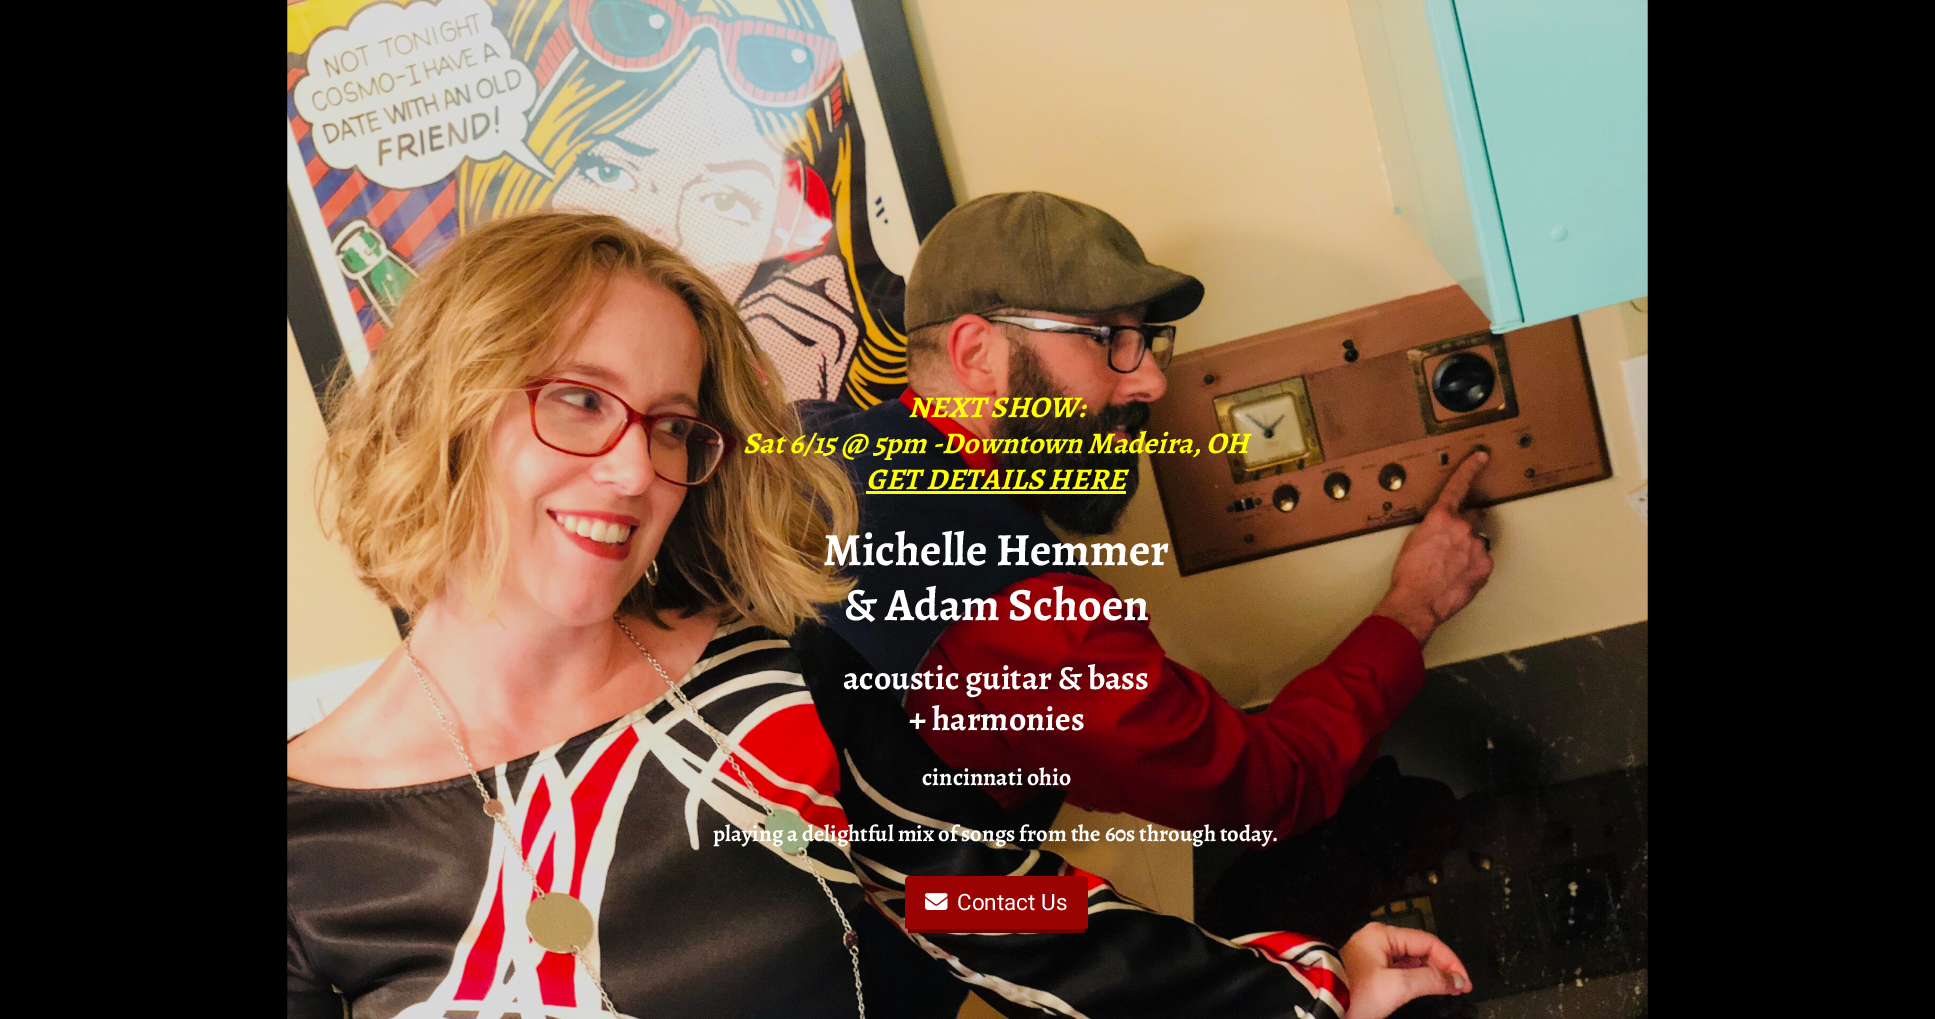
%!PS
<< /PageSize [1935 1019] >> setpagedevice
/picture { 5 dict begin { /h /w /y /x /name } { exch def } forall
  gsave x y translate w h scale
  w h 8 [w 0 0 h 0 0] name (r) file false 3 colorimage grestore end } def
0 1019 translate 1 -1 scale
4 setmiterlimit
0 setgray
0 0 1935 1019 rectfill
(img1.rgb) 287 0 1361 1019 picture
(img2.rgb) 287 0 1361 1019 picture
/Alegreya-BoldItalic [30 0 0 -30 0 0] selectfont
1 1 0 setrgbcolor
908 417 moveto (NEXT SHOW:) show
743 453 moveto (Sat 6/15 @ 5pm -Downtown Madeira, OH) show
866 489 moveto (GET DETAILS HERE) show
866 491 260 3 rectfill
/Alegreya-Bold [46.25 0 0 -46.25 0 0] selectfont
1 setgray
823 565 moveto (Michelle Hemmer) show
844 620 moveto (& Adam Schoen) show
/Alegreya-Bold [33.75 0 0 -33.75 0 0] selectfont
843 689 moveto (acoustic guitar & bass) show
909 730 moveto (+ harmonies) show
/Alegreya-Bold [23.75 0 0 -23.75 0 0] selectfont
922 785 moveto (cincinnati ohio) show
/Alegreya-Bold [22.5 0 0 -22.5 0 0] selectfont
713 841 moveto (playing a delightful mix of songs from the 60s through today.) show
0.608 0.012 0.012 setrgbcolor
newpath 910 876 moveto 1082 876 lineto 1085 876 1088 878 1088 881 curveto 1088 928 lineto 1088 928 1085 929 1082 929 curveto 910 929 lineto 907 929 905 928 905 928 curveto 905 881 lineto 905 878 907 876 910 876 curveto closepath fill
0.412 0.008 0.008 setrgbcolor
908 929 177 4 rectfill
(img3.rgb) 925 893 23 17 picture
/Roboto-Regular [22.5 0 0 -22.5 0 0] selectfont
1 setgray
957 910 moveto (Contact Us) show
showpage
